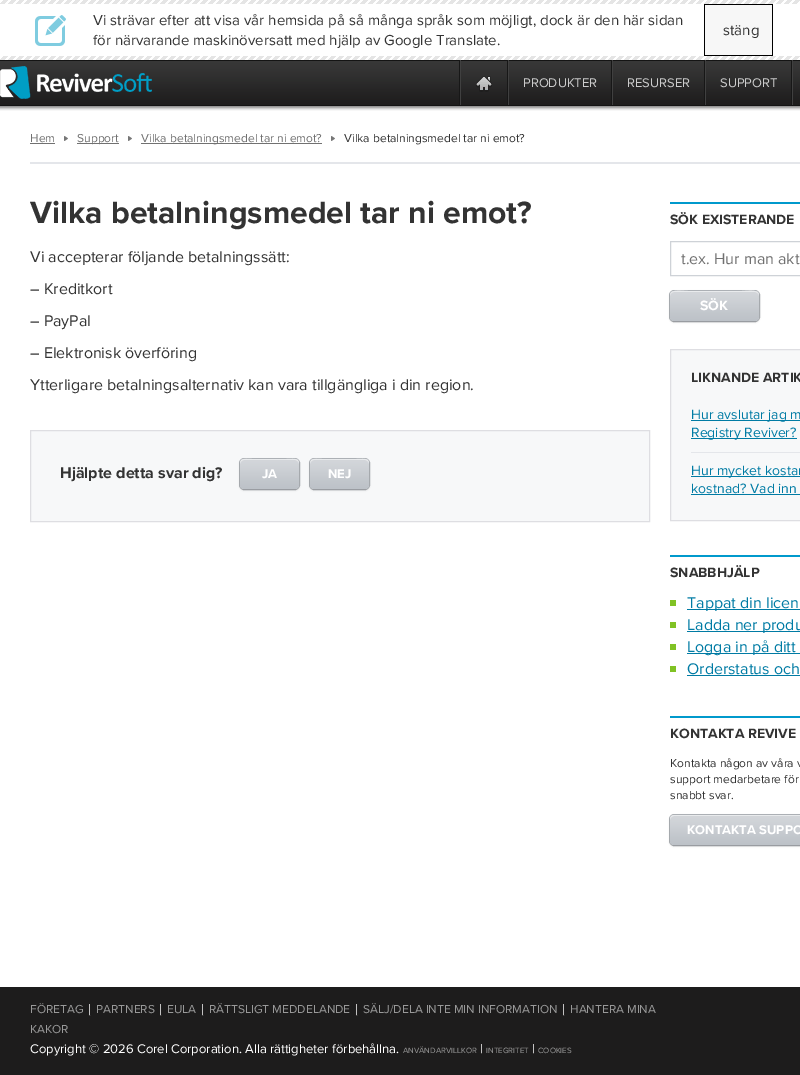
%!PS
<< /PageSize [800 1075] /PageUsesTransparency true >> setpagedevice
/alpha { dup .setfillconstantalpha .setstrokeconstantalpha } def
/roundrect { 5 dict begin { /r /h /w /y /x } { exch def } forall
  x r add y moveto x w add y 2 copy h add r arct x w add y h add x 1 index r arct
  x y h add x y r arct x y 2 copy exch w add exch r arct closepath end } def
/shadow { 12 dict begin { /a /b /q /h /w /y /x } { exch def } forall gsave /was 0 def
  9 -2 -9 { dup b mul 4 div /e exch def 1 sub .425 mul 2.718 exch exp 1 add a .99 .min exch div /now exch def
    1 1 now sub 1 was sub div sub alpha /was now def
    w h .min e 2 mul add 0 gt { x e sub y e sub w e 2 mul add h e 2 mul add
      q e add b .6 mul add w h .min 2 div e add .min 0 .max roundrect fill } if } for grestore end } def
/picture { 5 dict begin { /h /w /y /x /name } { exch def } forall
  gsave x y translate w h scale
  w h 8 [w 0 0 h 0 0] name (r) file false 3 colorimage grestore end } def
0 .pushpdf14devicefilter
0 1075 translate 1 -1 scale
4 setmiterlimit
1 setgray
0 0 800 1075 rectfill
(img1.rgb) 0 60 800 51 picture
(img2.rgb) 0 0 800 4 picture
(img3.rgb) 35 15 31 31 picture
/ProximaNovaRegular-Regular [15 0 0 -15 0 0] selectfont
0.2 setgray
93 25 moveto 0.25 0 32 (Vi strävar efter att visa vår hemsida på så många språk som möjligt, dock är den här sidan) widthshow
93 45 moveto (för närvarande maskinöversatt med hjälp av Google Translate.) show
0.969 setgray
705 5 67 50 rectfill
0 setgray
704 4 69 1 rectfill
772 4 1 52 rectfill
704 55 69 1 rectfill
704 4 1 52 rectfill
0.2 setgray
723 35 moveto (stäng) show
(img2.rgb) 0 56 800 4 picture
(img4.rgb) 0 66 152 33 picture
0.09 setgray
459 60 1 45 rectfill
507 60 1 45 rectfill
0.251 setgray
460 60 1 45 rectfill
(img5.rgb) 476 76 16 16 picture
0.09 setgray
611 60 1 45 rectfill
0.251 setgray
508 60 1 45 rectfill
/ProximaNovaRegular-Regular [13 0 0 -13 0 0] selectfont
0.8 setgray
523 87 moveto (PRODUKTER) show
0.09 setgray
704 60 1 45 rectfill
0.251 setgray
612 60 1 45 rectfill
0.8 setgray
627 87 moveto (RESURSER) show
0.09 setgray
791 60 1 45 rectfill
0.251 setgray
705 60 1 45 rectfill
0.8 setgray
720 87 moveto (SUPPORT) show
0.251 setgray
792 60 1 45 rectfill
0.894 0.902 0.918 setrgbcolor
30 162 770 2 rectfill
/ProximaNovaRegular-Regular [12 0 0 -12 0 0] selectfont
0.443 setgray
30 142 moveto (Hem) show
30 143 25 1 rectfill
(img6.rgb) 64 136 4 5 picture
77 143 42 1 rectfill
77 142 moveto (Support) show
(img6.rgb) 128 136 4 5 picture
141 143 181 1 rectfill
141 142 moveto (Vilka betalningsmedel tar ni emot?) show
(img6.rgb) 331 136 4 5 picture
0.2 setgray
344 142 moveto (Vilka betalningsmedel tar ni emot?) show
/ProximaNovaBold-Regular [32 0 0 -32 0 0] selectfont
30 223 moveto (Vilka betalningsmedel tar ni emot?) show
/ProximaNovaRegular-Regular [16 0 0 -16 0 0] selectfont
30 262 moveto (Vi accepterar följande betalningssätt:) show
30 294 moveto (– Kreditkort) show
30 326 moveto (– PayPal) show
30 358 moveto (– Elektronisk överföring) show
30 390 moveto (Ytterligare betalningsalternativ kan vara tillgängliga i din region.) show
0.969 0.973 0.976 setrgbcolor
newpath 30.5 430.5 moveto 649.5 430.5 lineto 649.5 521.5 lineto 30.5 521.5 lineto closepath gsave fill grestore
0.871 0.871 0.886 setrgbcolor
stroke
/ProximaNovaBold-Regular [16 0 0 -16 0 0] selectfont
0.2 setgray
60 478 moveto (Hjälpte detta svar dig?) show
0.686 0.702 0.722 setrgbcolor
239.5 458.5 60 31 4.5 roundrect stroke
0 setgray
240 460 59 30 4 1 0.19 shadow
(img7.rgb) 240 459 59 30 picture
0.5 alpha
1 setgray
newpath 244 460 moveto 295 460 lineto 297 460 299 462 299 464 curveto 299 457 292 459 286 459 curveto 252 459 lineto 247 459 240 457 240 464 curveto 240 462 242 460 244 460 curveto closepath fill
/ProximaNovaBold-Regular [13 0 0 -13 0 0] selectfont
1 alpha
262 478 moveto (JA) show
0.686 0.702 0.722 setrgbcolor
309.5 458.5 60 31 4.5 roundrect stroke
0 setgray
310 460 59 30 4 1 0.19 shadow
(img7.rgb) 310 459 59 30 picture
0.5 alpha
1 setgray
newpath 314 460 moveto 365 460 lineto 367 460 369 462 369 464 curveto 369 457 362 459 356 459 curveto 322 459 lineto 317 459 310 457 310 464 curveto 310 462 312 460 314 460 curveto closepath fill
1 alpha
328 478 moveto (NEJ) show
0 0.6 0.8 setrgbcolor
670 202 130 2 rectfill
/ProximaNovaBold-Regular [14 0 0 -14 0 0] selectfont
0.2 setgray
670 224 moveto (SÖK EXISTERANDE) show
0.808 0.824 0.843 setrgbcolor
670.5 241.5 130 34 rectstroke
/ProximaNovaRegular-Regular [16 0 0 -16 0 0] selectfont
0.443 setgray
681 264 moveto (t.ex. Hur man akt) show
0.686 0.702 0.722 setrgbcolor
669.5 290.5 90 31 4.5 roundrect stroke
0 setgray
670 292 89 30 4 1 0.19 shadow
(img8.rgb) 670 291 89 30 picture
0.5 alpha
1 setgray
newpath 674 292 moveto 755 292 lineto 757 292 759 294 759 296 curveto 759 288 746 291 742 291 curveto 688 291 lineto 683 291 670 288 670 296 curveto 670 294 672 292 674 292 curveto closepath fill
/ProximaNovaBold-Regular [14 0 0 -14 0 0] selectfont
1 alpha
700 310 moveto (SÖK) show
0.969 0.973 0.976 setrgbcolor
newpath 670.5 349.5 moveto 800.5 349.5 lineto 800.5 520.5 lineto 670.5 520.5 lineto closepath gsave fill grestore
0.871 0.871 0.886 setrgbcolor
stroke
0.2 setgray
691 382 moveto (LIKNANDE ARTIK) show
0 0.482 0.643 setrgbcolor
691 420 109 1 rectfill
/ProximaNovaRegular-Regular [14 0 0 -14 0 0] selectfont
691 419 moveto (Hur avslutar jag m) show
691 438 106 1 rectfill
691 437 moveto (Registry Reviver?) show
0.894 0.902 0.918 setrgbcolor
691 452 109 1 rectfill
0 0.482 0.643 setrgbcolor
691 476 109 1 rectfill
691 475 moveto (Hur mycket kostar) show
691 493 moveto (kostnad? Vad inn) show
691 494 109 1 rectfill
0 0.6 0.8 setrgbcolor
670 555 130 2 rectfill
/ProximaNovaBold-Regular [14 0 0 -14 0 0] selectfont
0.2 setgray
670 577 moveto (SNABBHJÄLP) show
0.502 0.761 0.141 setrgbcolor
670 600 6 6 rectfill
0 0.482 0.643 setrgbcolor
687 609 113 1 rectfill
/ProximaNovaRegular-Regular [16 0 0 -16 0 0] selectfont
687 608 moveto (Tappat din licen) show
0.502 0.761 0.141 setrgbcolor
670 622 6 6 rectfill
0 0.482 0.643 setrgbcolor
687 631 113 1 rectfill
687 630 moveto (Ladda ner produ) show
0.502 0.761 0.141 setrgbcolor
670 644 6 6 rectfill
0 0.482 0.643 setrgbcolor
687 653 113 1 rectfill
687 652 moveto (Logga in på ditt) show
0.502 0.761 0.141 setrgbcolor
670 666 6 6 rectfill
0 0.482 0.643 setrgbcolor
687 674 moveto (Orderstatus och) show
687 675 113 1 rectfill
0 0.6 0.8 setrgbcolor
670 716 130 2 rectfill
/ProximaNovaBold-Regular [14 0 0 -14 0 0] selectfont
0.2 setgray
670 738 moveto (KONTAKTA REVIVE) show
/ProximaNovaRegular-Regular [12 0 0 -12 0 0] selectfont
670 767 moveto (Kontakta någon av våra v) show
670 783 moveto (support medarbetare för) show
670 799 moveto (snabbt svar.) show
0.686 0.702 0.722 setrgbcolor
669.5 814.5 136 31 4.5 roundrect stroke
0 setgray
670 816 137 30 4 1 0.19 shadow
(img9.rgb) 670 815 130 30 picture
0.5 alpha
1 setgray
newpath 674 816 moveto 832 816 lineto 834 816 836 818 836 820 curveto 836 819 lineto 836 817 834 815 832 815 curveto 674 815 lineto 672 815 670 817 670 819 curveto 670 820 lineto 670 818 672 816 674 816 curveto closepath fill
/ProximaNovaBold-Regular [13 0 0 -13 0 0] selectfont
1 alpha
687 834 moveto (KONTAKTA SUPPO) show
0.114 0.11 0.11 setrgbcolor
0 987 800 88 rectfill
/ProximaNovaRegular-Regular [12 0 0 -12 0 0] selectfont
0.6 setgray
30 1013 moveto (FÖRETAG) show
/ProximaNovaRegular-Regular [16 0 0 -16 0 0] selectfont
1 setgray
88 1015 moveto (|) show
/ProximaNovaRegular-Regular [12 0 0 -12 0 0] selectfont
0.6 setgray
96 1013 moveto (PARTNERS) show
/ProximaNovaRegular-Regular [16 0 0 -16 0 0] selectfont
1 setgray
159 1015 moveto (|) show
/ProximaNovaRegular-Regular [12 0 0 -12 0 0] selectfont
0.6 setgray
167 1013 moveto (EULA) show
/ProximaNovaRegular-Regular [16 0 0 -16 0 0] selectfont
1 setgray
201 1015 moveto (|) show
/ProximaNovaRegular-Regular [12 0 0 -12 0 0] selectfont
0.6 setgray
209 1013 moveto (RÄTTSLIGT MEDDELANDE) show
/ProximaNovaRegular-Regular [16 0 0 -16 0 0] selectfont
1 setgray
355 1015 moveto (|) show
/ProximaNovaRegular-Regular [12 0 0 -12 0 0] selectfont
0.6 setgray
363 1013 moveto (SÄLJ/DELA INTE MIN INFORMATION) show
/ProximaNovaRegular-Regular [16 0 0 -16 0 0] selectfont
1 setgray
562 1015 moveto (|) show
/ProximaNovaRegular-Regular [12 0 0 -12 0 0] selectfont
0.6 setgray
570 1013 moveto (HANTERA MINA) show
30 1033 moveto (KAKOR) show
/ProximaNovaRegular-Regular [13 0 0 -13 0 0] selectfont
1 setgray
30 1053 moveto (Copyright © 2026 Corel Corporation. Alla rättigheter förbehållna.) show
/ProximaNovaRegular-Regular [8 0 0 -8 0 0] selectfont
0.6 setgray
403 1053 moveto (ANVÄNDARVILLKOR) show
/ProximaNovaRegular-Regular [13 0 0 -13 0 0] selectfont
1 setgray
480 1053 moveto (|) show
/ProximaNovaRegular-Regular [8 0 0 -8 0 0] selectfont
0.6 setgray
486 1053 moveto (INTEGRITET) show
/ProximaNovaRegular-Regular [13 0 0 -13 0 0] selectfont
1 setgray
532 1053 moveto (|) show
/ProximaNovaRegular-Regular [8 0 0 -8 0 0] selectfont
0.6 setgray
538 1053 moveto (COOKIES) show
.poppdf14devicefilter showpage
